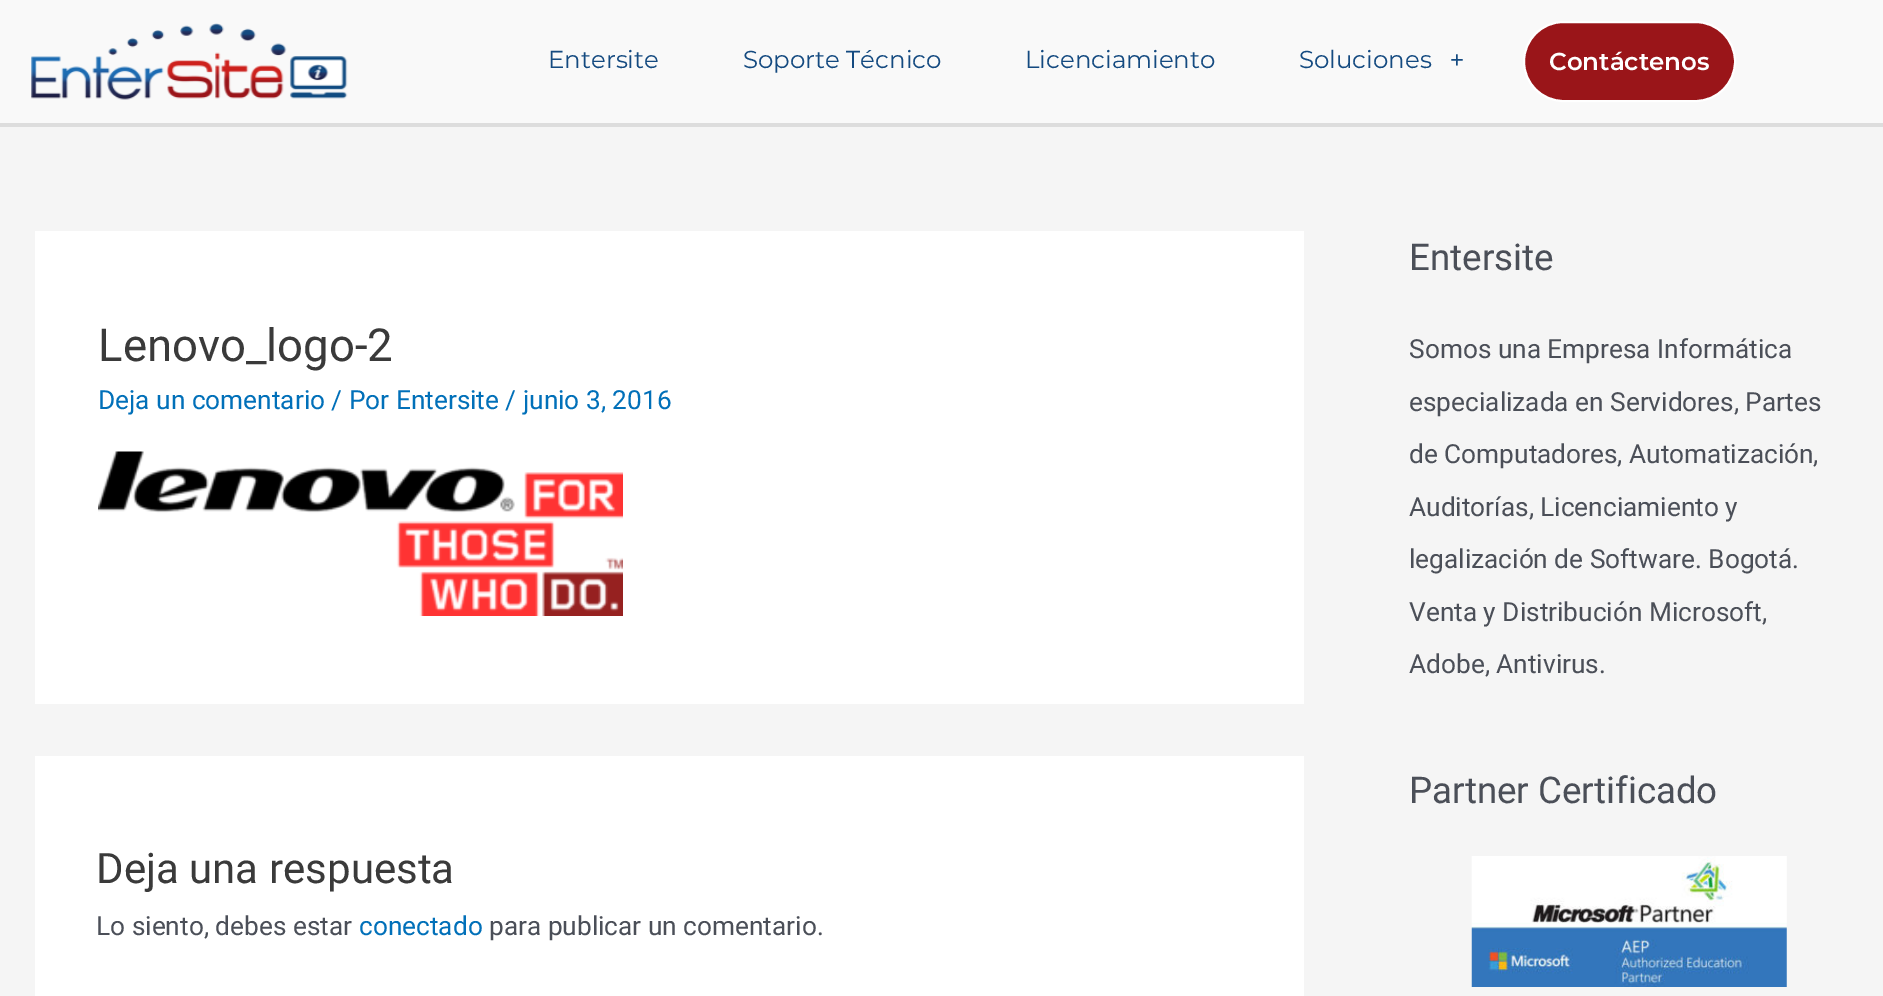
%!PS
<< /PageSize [1883 996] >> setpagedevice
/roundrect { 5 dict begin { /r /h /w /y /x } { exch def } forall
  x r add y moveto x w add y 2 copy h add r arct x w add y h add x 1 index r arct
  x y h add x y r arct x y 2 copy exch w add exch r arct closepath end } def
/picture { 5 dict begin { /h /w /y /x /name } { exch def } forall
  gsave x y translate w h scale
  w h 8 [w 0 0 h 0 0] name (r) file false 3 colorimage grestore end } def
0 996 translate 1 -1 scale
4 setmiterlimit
0.961 setgray
0 0 1883 996 rectfill
0.976 setgray
0 0 1883 123 rectfill
0.867 setgray
0 123 1883 4 rectfill
(img1.rgb) 31 23 317 77 picture
/Montserrat-Regular [24.5 0 0 -24.5 0 0] selectfont
0.078 0.29 0.502 setrgbcolor
548 68 moveto (Entersite) show
743 68 moveto (Soporte Técnico) show
1025 68 moveto (Licenciamiento) show
1299 68 moveto (Soluciones) show
/LiberationSerif-Bold [24.5 0 0 -24.5 0 0] selectfont
1450 68 moveto (+) show
0.604 0.082 0.098 setrgbcolor
1524 22 211 79 39.5 roundrect gsave fill grestore
1 setgray
2 setlinewidth
stroke
/Montserrat-SemiBold [24.5 0 0 -24.5 0 0] selectfont
1549 70 moveto (Contáctenos) show
35 231 1269 473 rectfill
/Roboto-Regular [45.5 0 0 -45.5 0 0] selectfont
0.227 setgray
98 361 moveto (Lenovo_logo-2) show
/Roboto-Regular [26.25 0 0 -26.25 0 0] selectfont
0.004 0.439 0.725 setrgbcolor
98 409 moveto (Deja un comentario / Por Entersite / junio 3, 2016) show
(img2.rgb) 98 451 525 165 picture
1 setgray
35 756 1269 240 rectfill
/Roboto-Regular [42 0 0 -42 0 0] selectfont
0.227 setgray
96 883 moveto (Deja una respuesta) show
/Roboto-Regular [26.25 0 0 -26.25 0 0] selectfont
0.294 0.31 0.345 setrgbcolor
96 935 moveto (Lo siento, debes estar) show
0.004 0.439 0.725 setrgbcolor
359 935 moveto (conectado) show
0.294 0.31 0.345 setrgbcolor
489 935 moveto (para publicar un comentario.) show
/Roboto-Regular [36.75 0 0 -36.75 0 0] selectfont
1409 270 moveto (Entersite) show
/Roboto-Regular [26.25 0 0 -26.25 0 0] selectfont
1409 358 moveto (Somos una Empresa Informática) show
1409 411 moveto (especializada en Servidores, Partes) show
1409 463 moveto (de Computadores, Automatización,) show
1409 516 moveto (Auditorías, Licenciamiento y) show
1409 568 moveto (legalización de Software. Bogotá.) show
1409 621 moveto (Venta y Distribución Microsoft,) show
1409 673 moveto (Adobe, Antivirus.) show
/Roboto-Regular [36.75 0 0 -36.75 0 0] selectfont
1409 803 moveto (Partner Certificado) show
(img3.rgb) 1471 856 316 131 picture
showpage
